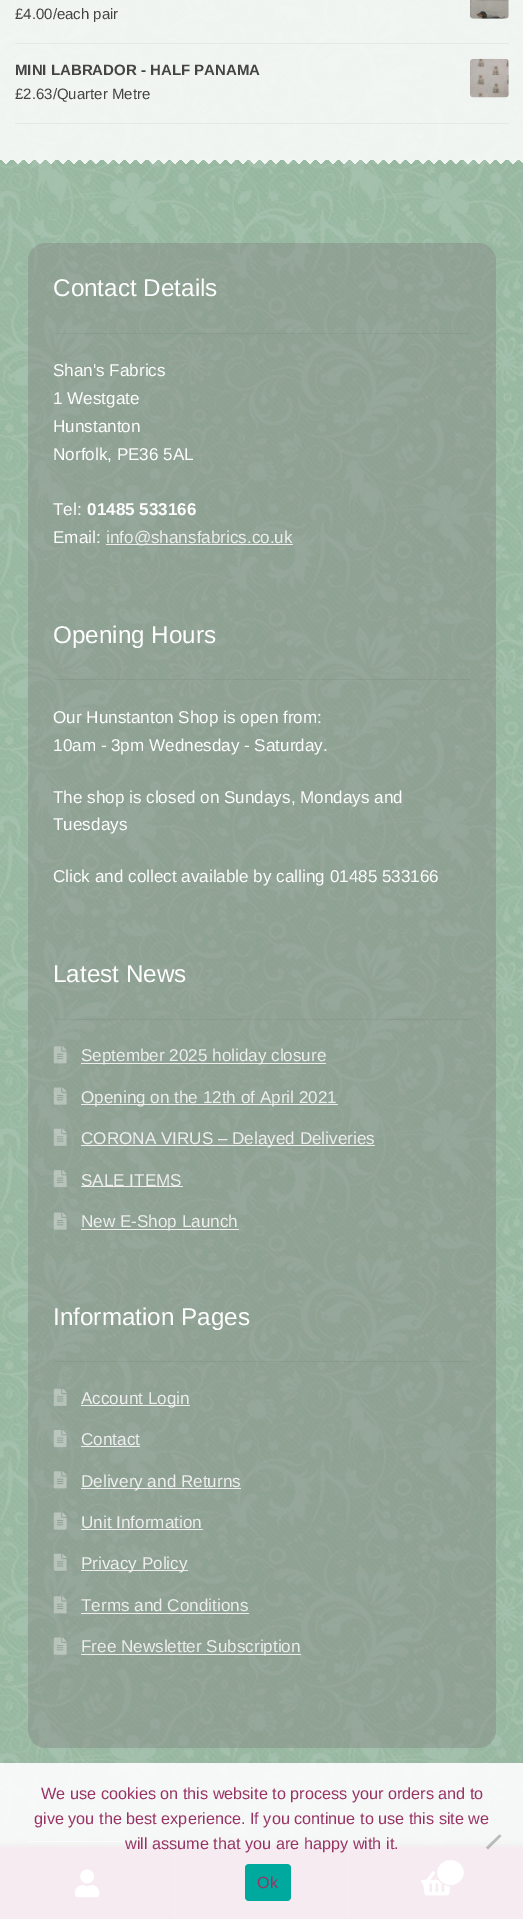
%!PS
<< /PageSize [523 1919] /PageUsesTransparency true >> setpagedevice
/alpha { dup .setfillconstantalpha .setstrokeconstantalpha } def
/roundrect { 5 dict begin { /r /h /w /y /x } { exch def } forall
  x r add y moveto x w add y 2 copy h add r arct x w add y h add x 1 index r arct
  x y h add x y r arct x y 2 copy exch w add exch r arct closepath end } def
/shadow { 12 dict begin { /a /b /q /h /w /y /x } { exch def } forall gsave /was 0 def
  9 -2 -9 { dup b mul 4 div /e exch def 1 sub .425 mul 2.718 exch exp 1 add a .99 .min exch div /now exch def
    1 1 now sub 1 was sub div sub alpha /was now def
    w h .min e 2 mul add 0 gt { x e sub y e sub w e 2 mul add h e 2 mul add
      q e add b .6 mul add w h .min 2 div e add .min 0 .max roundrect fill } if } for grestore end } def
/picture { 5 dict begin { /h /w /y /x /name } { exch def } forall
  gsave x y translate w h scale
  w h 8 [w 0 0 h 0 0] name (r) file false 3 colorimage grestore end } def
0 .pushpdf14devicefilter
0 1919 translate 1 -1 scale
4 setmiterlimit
1 setgray
0 0 523 1919 rectfill
(img1.rgb) 0 0 523 1846 picture
0.85 alpha
0 0 523 160 rectfill
1 alpha
0.894 0.914 0.898 setrgbcolor
15 43 494 1 rectfill
/LiberationSans-Regular [15 0 0 -15 0 0] selectfont
0.267 setgray
15 19 moveto (£4.00/each pair) show
(img2.rgb) 470 0 39 19 picture
0.05 alpha
0 setgray
15 123 494 1 rectfill
/LiberationSans-Bold [15 0 0 -15 0 0] selectfont
1 alpha
0.267 setgray
15 75 moveto (MINI LABRADOR - HALF PANAMA) show
(img3.rgb) 470 58 39 40 picture
/LiberationSans-Regular [15 0 0 -15 0 0] selectfont
15 99 moveto (£2.63/Quarter Metre) show
(img4.rgb) 2 160 521 4 picture
(img5.rgb) 6 160 511 4 picture
0.4 alpha
0.502 setgray
28 243 468 1505 18 roundrect fill
0.05 alpha
0 setgray
54 333 416 1 rectfill
/LiberationSans-Regular [24.25 0 0 -24.25 0 0] selectfont
1 alpha
1 setgray
53 296 moveto (Contact Details) show
/LiberationSans-Regular [17.1 0 0 -17.1 0 0] selectfont
53 376 moveto (Shan's Fabrics) show
53 404 moveto (1 Westgate) show
53 432 moveto (Hunstanton) show
53 460 moveto (Norfolk, PE36 5AL) show
53 515 moveto (Tel:) show
/LiberationSans-Bold [17.1 0 0 -17.1 0 0] selectfont
87 515 moveto (01485 533166) show
/LiberationSans-Regular [17.1 0 0 -17.1 0 0] selectfont
53 543 moveto (Email:) show
0.933 setgray
106 544 187 1 rectfill
106 543 moveto (info@shansfabrics.co.uk) show
0.05 alpha
0 setgray
54 679 416 1 rectfill
/LiberationSans-Regular [24.25 0 0 -24.25 0 0] selectfont
1 alpha
1 setgray
53 643 moveto (Opening Hours) show
/LiberationSans-Regular [17.1 0 0 -17.1 0 0] selectfont
53 723 moveto (Our Hunstanton Shop is open from:) show
53 751 moveto (10am - 3pm Wednesday - Saturday.) show
53 803 moveto (The shop is closed on Sundays, Mondays and) show
53 830 moveto (Tuesdays) show
53 882 moveto (Click and collect available by calling 01485 533166) show
0.05 alpha
0 setgray
54 1019 416 1 rectfill
/LiberationSans-Regular [24.25 0 0 -24.25 0 0] selectfont
1 alpha
1 setgray
53 982 moveto (Latest News) show
(img6.rgb) 53 1046 14 18 picture
0.933 setgray
81 1063 245 1 rectfill
/LiberationSans-Regular [17.1 0 0 -17.1 0 0] selectfont
81 1061 moveto (September 2025 holiday closure) show
(img7.rgb) 53 1087 14 18 picture
81 1104 257 1 rectfill
81 1103 moveto (Opening on the 12th of April 2021) show
(img8.rgb) 53 1128 14 18 picture
81 1145 294 1 rectfill
81 1144 moveto (CORONA VIRUS – Delayed Deliveries) show
(img9.rgb) 53 1170 14 18 picture
81 1186 102 1 rectfill
81 1186 moveto (SALE ITEMS) show
(img10.rgb) 53 1212 14 18 picture
81 1229 158 1 rectfill
81 1227 moveto (New E-Shop Launch) show
0.05 alpha
0 setgray
54 1361 416 1 rectfill
/LiberationSans-Regular [24.25 0 0 -24.25 0 0] selectfont
1 alpha
1 setgray
53 1325 moveto (Information Pages) show
(img11.rgb) 53 1388 14 18 picture
0.933 setgray
81 1405 109 1 rectfill
/LiberationSans-Regular [17.1 0 0 -17.1 0 0] selectfont
81 1404 moveto (Account Login) show
(img12.rgb) 53 1430 14 18 picture
81 1445 moveto (Contact) show
81 1446 59 1 rectfill
(img13.rgb) 53 1471 14 18 picture
81 1488 160 1 rectfill
81 1487 moveto (Delivery and Returns) show
(img14.rgb) 53 1512 14 18 picture
81 1528 moveto (Unit Information) show
81 1529 122 1 rectfill
(img15.rgb) 53 1553 14 18 picture
81 1570 107 1 rectfill
81 1569 moveto (Privacy Policy) show
(img16.rgb) 53 1596 14 18 picture
81 1611 moveto (Terms and Conditions) show
81 1613 168 1 rectfill
(img17.rgb) 53 1637 14 18 picture
81 1654 220 1 rectfill
81 1652 moveto (Free Newsletter Subscription) show
28 1841 106 1 rectfill
149 1841 192 1 rectfill
0 setgray
0 1846 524 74 0 4 0.7 shadow
0.6 0.2 0.4 setrgbcolor
0 1847 523 1 rectfill
0.678 0.361 0.522 setrgbcolor
0 1846 523 1 rectfill
0.6 0.2 0.4 setrgbcolor
0 1848 174 71 rectfill
0.678 0.361 0.522 setrgbcolor
174 1848 1 71 rectfill
(img18.rgb) 75 1869 25 29 picture
0.6 0.2 0.4 setrgbcolor
175 1848 173 71 rectfill
0.678 0.361 0.522 setrgbcolor
348 1848 1 71 rectfill
0.6 0.2 0.4 setrgbcolor
349 1848 174 71 rectfill
(img19.rgb) 421 1871 30 25 picture
1 setgray
436.5 1859.5 28 26 13 roundrect gsave fill grestore
0.6 0.2 0.4 setrgbcolor
stroke
0.9 alpha
1 setgray
0 1763 523 156 rectfill
/LiberationSans-Regular [16.25 0 0 -16.25 0 0] selectfont
1 alpha
0.6 0.2 0.4 setrgbcolor
41 1799 moveto (We use cookies on this website to process your orders and to) show
34 1824 moveto (give you the best experience. If you continue to use this site we) show
125 1849 moveto (will assume that you are happy with it.) show
0.5 alpha
0.502 setgray
newpath 499.5 1834.5 moveto 501.5 1836 lineto 488 1849.5 lineto 486 1847.5 lineto closepath fill
1 alpha
0 0.663 0.616 setrgbcolor
245 1864 46 37 4 roundrect fill
0.6 0.2 0.4 setrgbcolor
257 1888 moveto (Ok) show
.poppdf14devicefilter showpage
